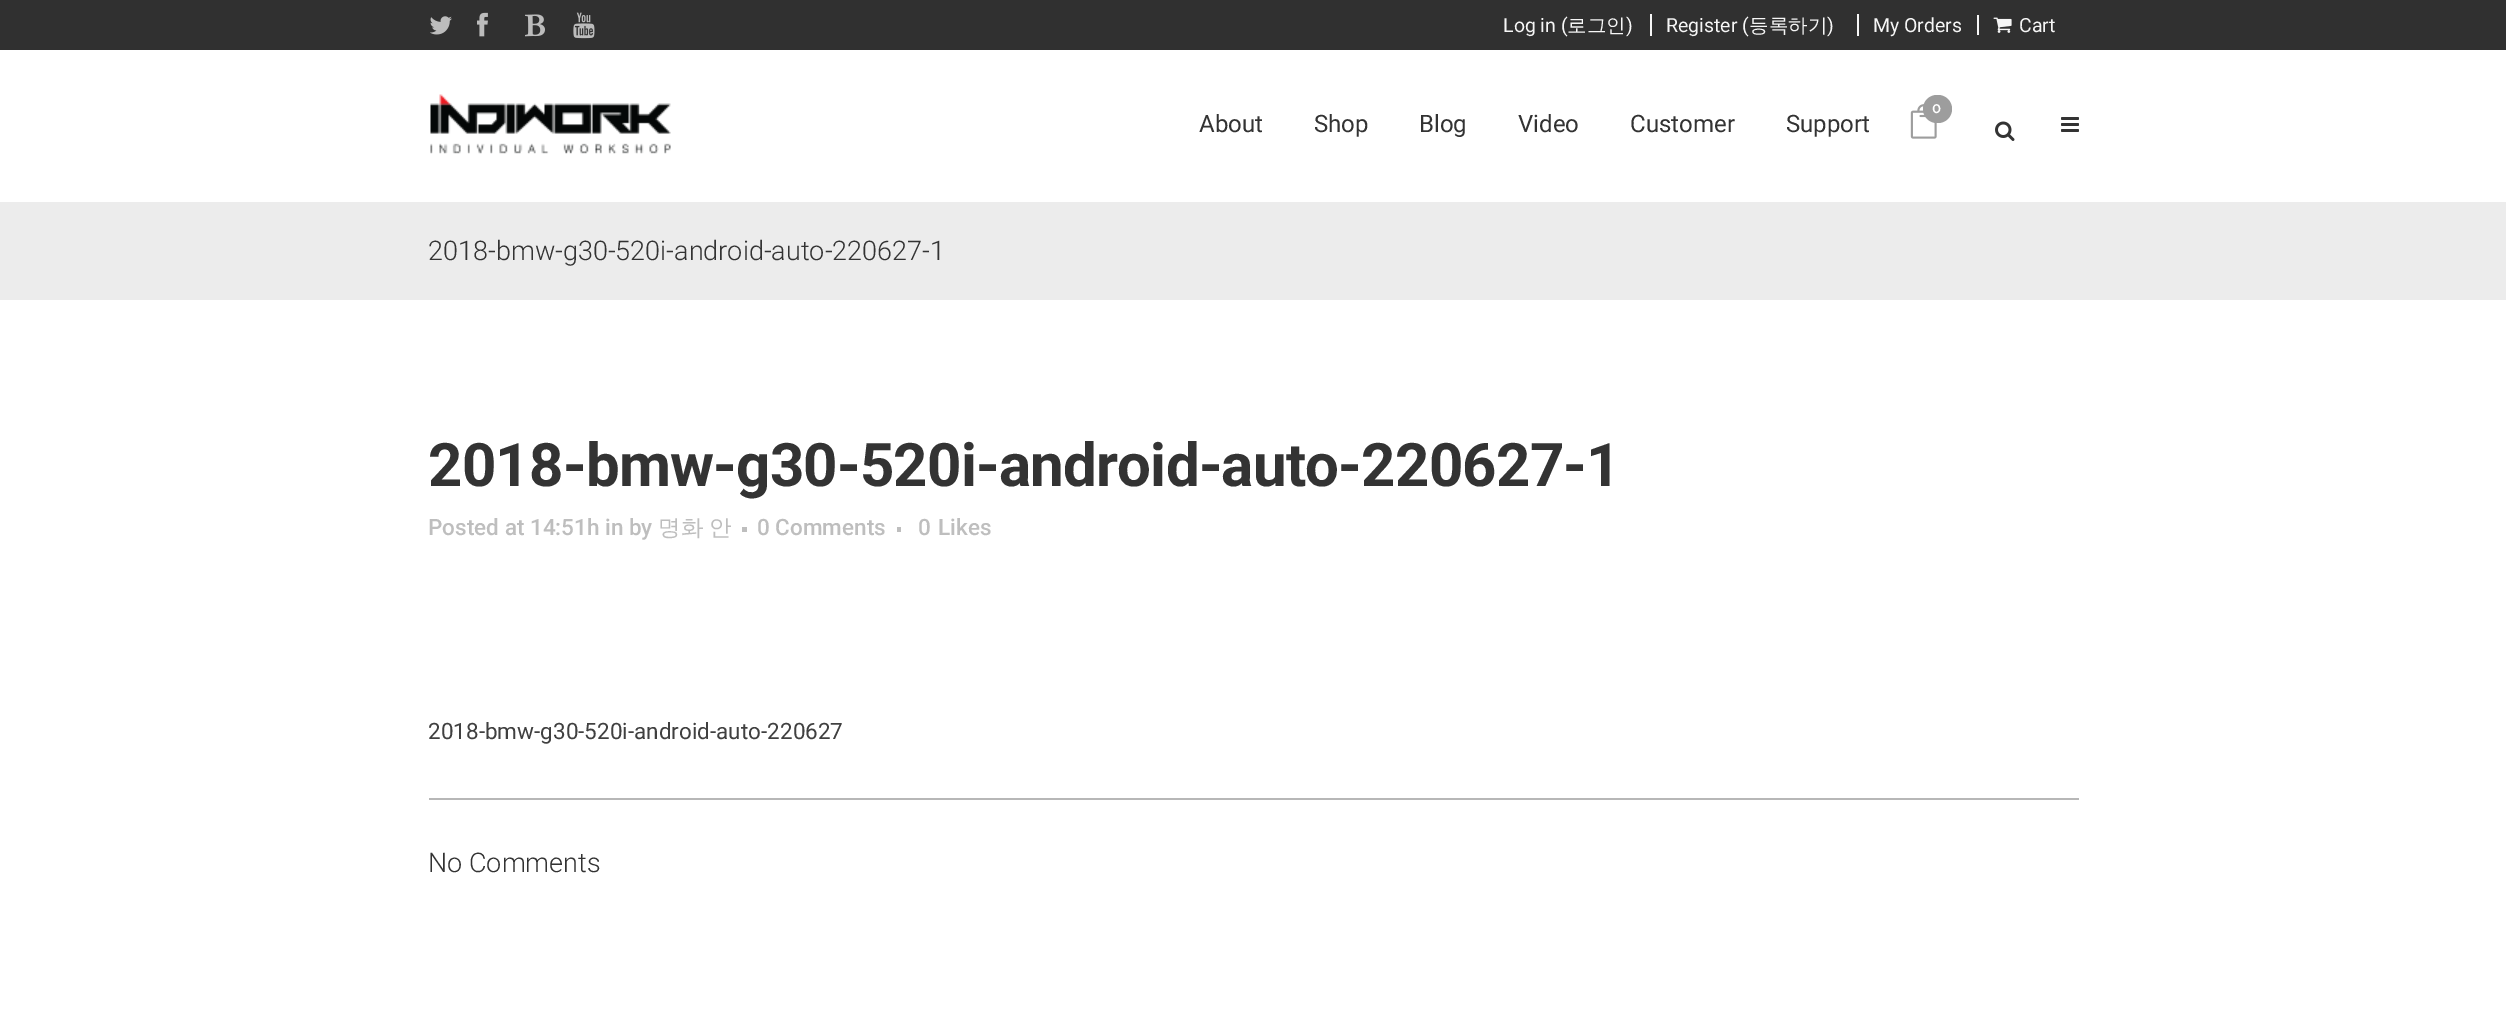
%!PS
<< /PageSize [2506 1027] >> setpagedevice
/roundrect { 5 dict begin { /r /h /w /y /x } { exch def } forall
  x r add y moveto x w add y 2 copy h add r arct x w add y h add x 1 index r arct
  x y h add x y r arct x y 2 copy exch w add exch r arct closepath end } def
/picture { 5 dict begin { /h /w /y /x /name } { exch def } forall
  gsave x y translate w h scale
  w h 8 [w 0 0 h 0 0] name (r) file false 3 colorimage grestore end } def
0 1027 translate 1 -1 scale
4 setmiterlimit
1 setgray
0 0 2506 1027 rectfill
0.188 setgray
0 0 2506 50 rectfill
(img1.rgb) 430 16 22 19 picture
(img2.rgb) 477 12 11 25 picture
(img3.rgb) 525 14 20 23 picture
(img4.rgb) 573 12 22 27 picture
0.965 setgray
1650 14 2 22 rectfill
/Roboto-Regular [19.5 0 0 -19.5 0 0] selectfont
1503 32 moveto (Log in \() show
/WenQuanYiZenHei-Medium [19.5 0 0 -19.5 0 0] selectfont
1567 32 moveto (로그인) show
/Roboto-Regular [19.5 0 0 -19.5 0 0] selectfont
1626 32 moveto (\)) show
1666 32 moveto (Register \() show
/WenQuanYiZenHei-Medium [19.5 0 0 -19.5 0 0] selectfont
1749 32 moveto (등록하기) show
/Roboto-Regular [19.5 0 0 -19.5 0 0] selectfont
1827 32 moveto (\)) show
1873 32 moveto (My Orders) show
1857 14 2 22 rectfill
1977 15 2 20 rectfill
(img5.rgb) 1993 17 19 16 picture
2019 32 moveto (Cart) show
(img6.rgb) 430 94 241 60 picture
(img7.rgb) 1910 104 27 35 picture
0.616 setgray
1923 95 29 28 14 roundrect fill
/Raleway-SemiBold [15 0 0 -15 0 0] selectfont
1 setgray
1932 113 moveto (0) show
(img8.rgb) 1995 121 20 20 picture
(img9.rgb) 2061 117 18 15 picture
/Roboto-Regular [24 0 0 -24 0 0] selectfont
0.2 setgray
1199 132 moveto (About) show
1314 132 moveto (Shop) show
1419 132 moveto (Blog) show
1518 132 moveto (Video) show
1630 132 moveto (Customer) show
1786 132 moveto (Support) show
0.925 setgray
0 202 2506 98 rectfill
/Roboto-Light [27 0 0 -27 0 0] selectfont
0.2 setgray
428 260 moveto (2018-bmw-g30-520i-android-auto-220627-1) show
0.718 setgray
429 798 1650 2 rectfill
/Roboto-Bold [60 0 0 -60 0 0] selectfont
0.2 setgray
428 486 moveto -0.75 0 (2018-bmw-g30-520i-android-auto-220627-1) ashow
/Roboto-Medium [22.5 0 0 -22.5 0 0] selectfont
0.745 setgray
428 535 moveto (Posted at 14:51h in by) show
/WenQuanYiZenHei-Medium [22.5 0 0 -22.5 0 0] selectfont
658 535 moveto -1 0 32 (명화 안) widthshow
742 527 5 5 rectfill
/Roboto-Medium [22.5 0 0 -22.5 0 0] selectfont
757 535 moveto (0 Comments) show
897 527 4 5 rectfill
918 535 moveto (0) show
938 535 moveto (Likes) show
/Roboto-Regular [22.5 0 0 -22.5 0 0] selectfont
0.251 setgray
428 739 moveto (2018-bmw-g30-520i-android-auto-220627) show
/Roboto-Light [27 0 0 -27 0 0] selectfont
0.2 setgray
428 872 moveto (No Comments) show
showpage
